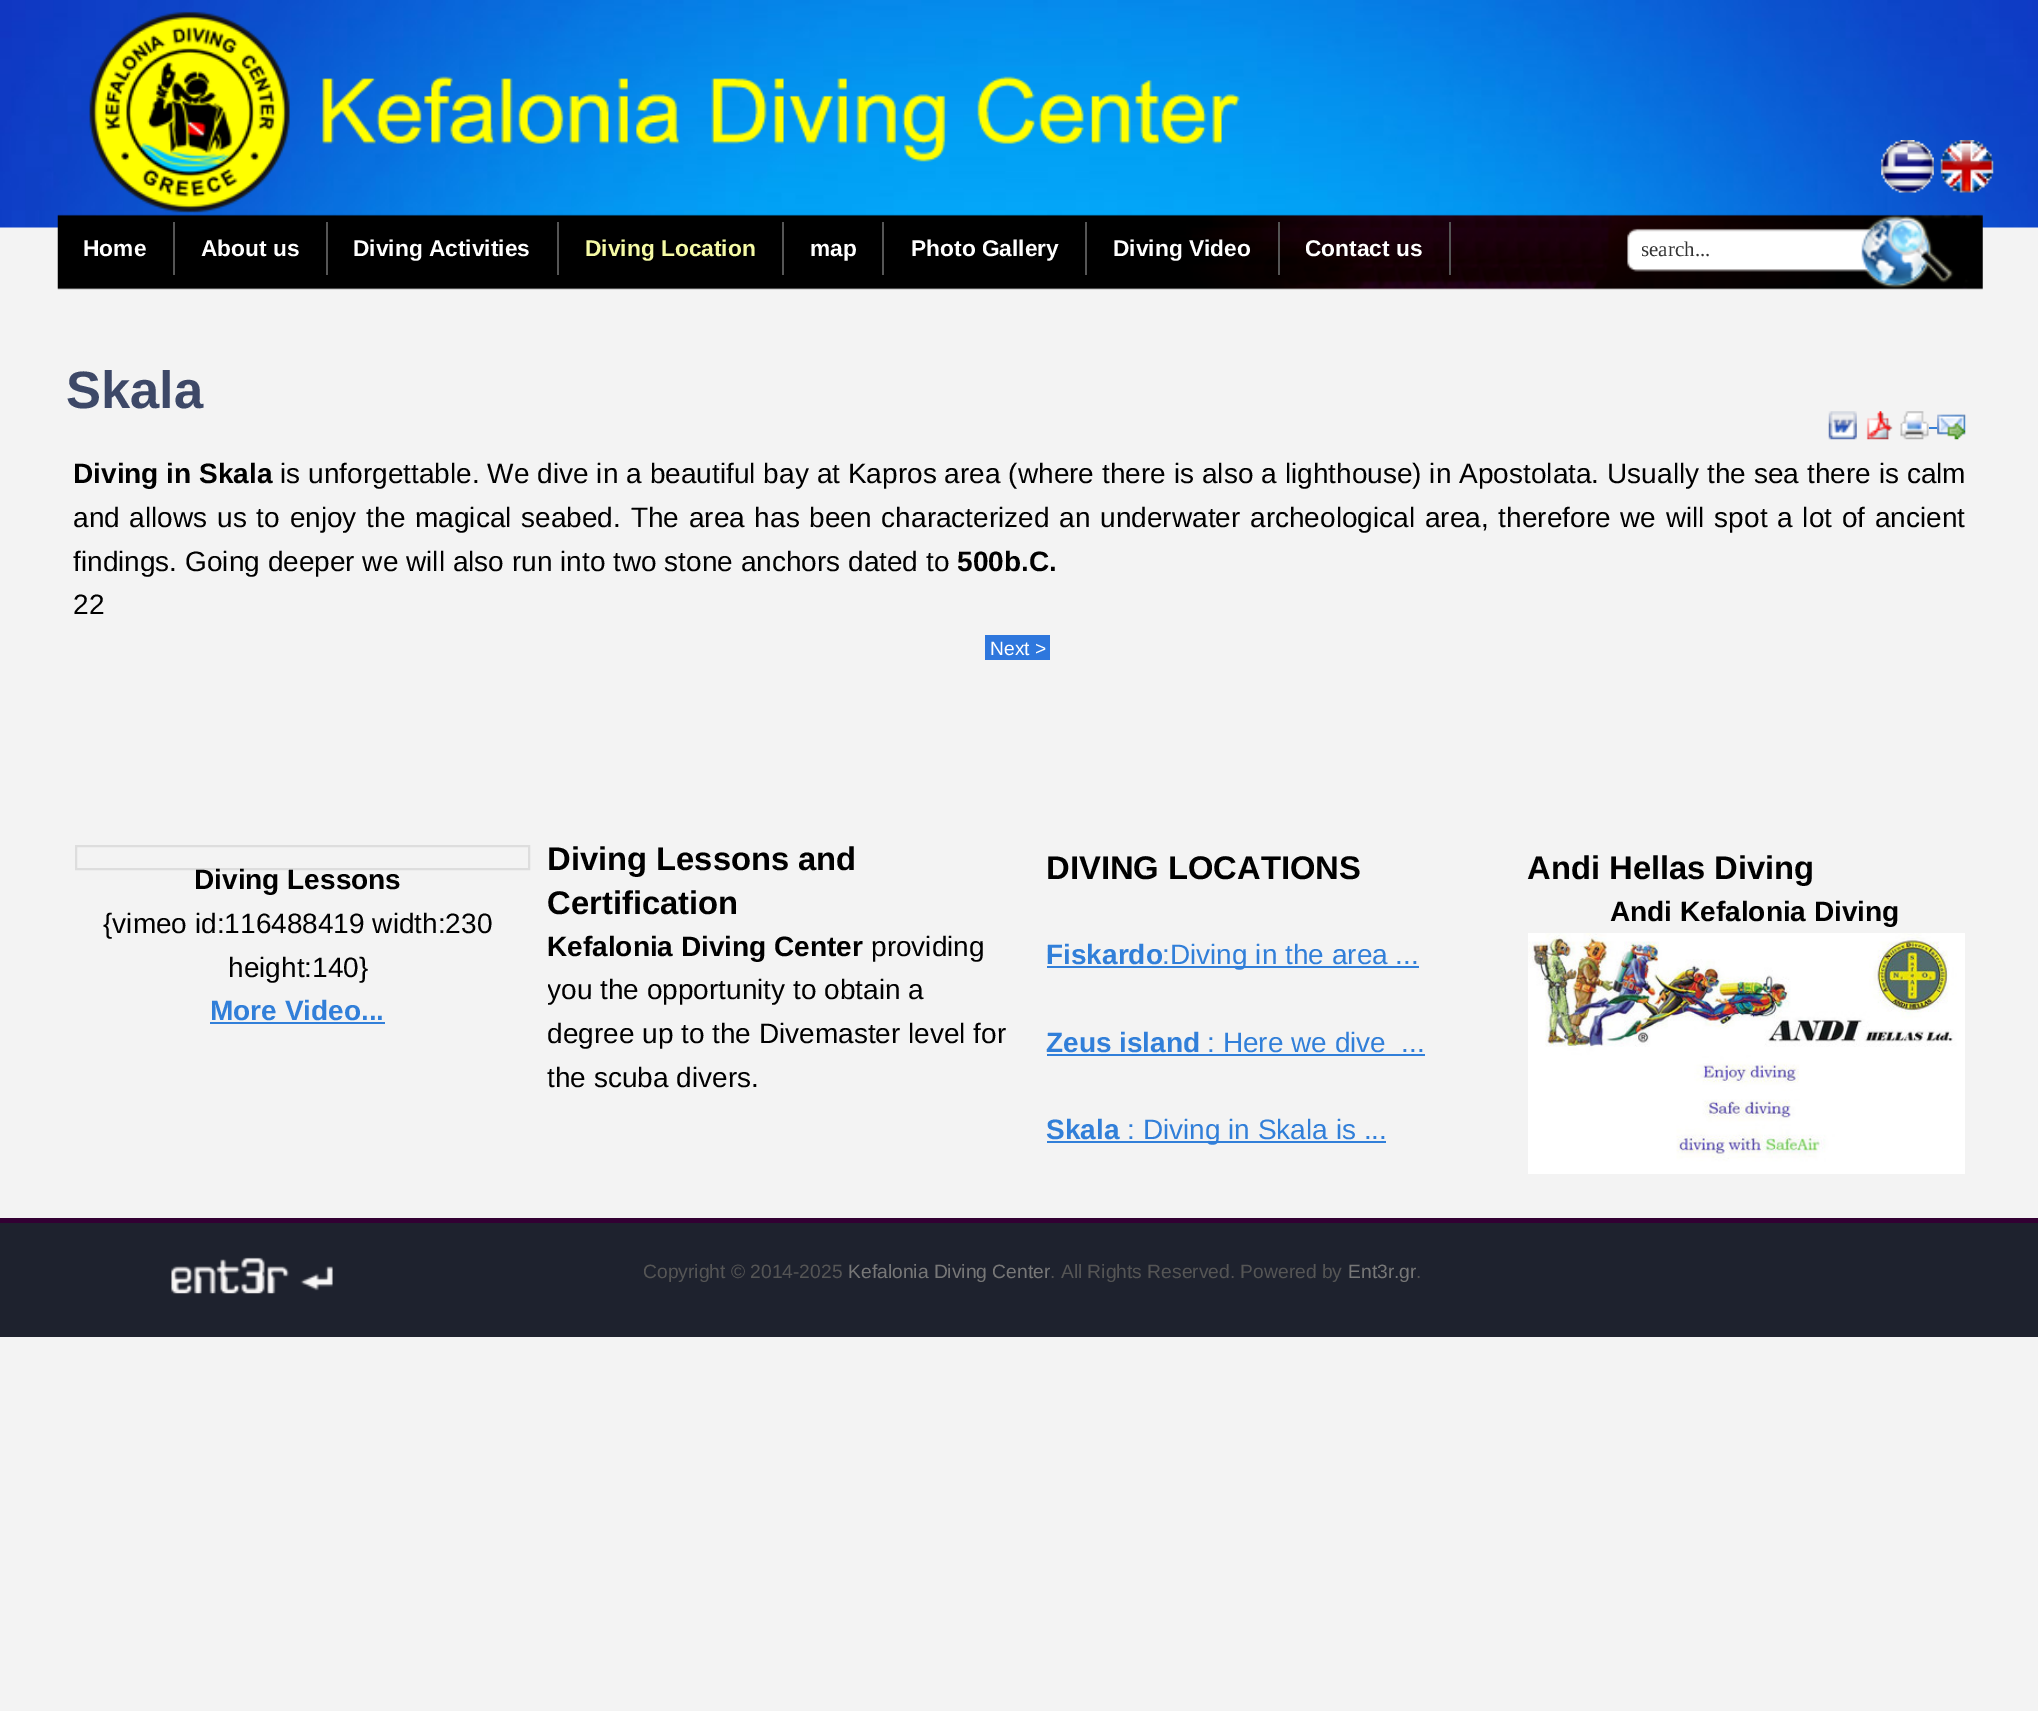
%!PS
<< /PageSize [2038 1711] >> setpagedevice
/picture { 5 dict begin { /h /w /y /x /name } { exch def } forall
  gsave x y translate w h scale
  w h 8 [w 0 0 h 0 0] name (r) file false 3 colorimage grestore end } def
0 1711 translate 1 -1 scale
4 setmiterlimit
0.953 setgray
0 0 2038 1711 rectfill
(img1.rgb) 0 0 2038 228 picture
(img2.rgb) 1881 140 53 53 picture
(img3.rgb) 1940 140 54 53 picture
(img4.rgb) 89 11 1151 202 picture
(img5.rgb) 57 214 1926 76 picture
0.333 setgray
173 222 2 53 rectfill
/LiberationSans-Bold [22.75 0 0 -22.75 0 0] selectfont
1 setgray
83 256 moveto (Home) show
0.333 setgray
326 222 2 53 rectfill
1 setgray
201 256 moveto (About us) show
0.333 setgray
557 222 2 53 rectfill
1 setgray
353 256 moveto (Diving Activities) show
0.333 setgray
782 222 2 53 rectfill
0.961 0.98 0.643 setrgbcolor
585 256 moveto (Diving Location) show
0.333 setgray
882 222 2 53 rectfill
1 setgray
810 256 moveto (map) show
0.333 setgray
1085 222 2 53 rectfill
1 setgray
911 256 moveto (Photo Gallery) show
0.333 setgray
1278 222 2 53 rectfill
1 setgray
1113 256 moveto (Diving Video) show
0.333 setgray
1449 222 2 53 rectfill
1 setgray
1305 256 moveto (Contact us) show
gsave
1642 236 157 25 rectclip
/LiberationSerif-Regular [21 0 0 -21 0 0] selectfont
0.2 setgray
1641 256 moveto (search...) show
grestore
/LiberationSans-Bold [52.5 0 0 -52.5 0 0] selectfont
0.239 0.282 0.404 setrgbcolor
66 408 moveto (Skala) show
(img6.rgb) 1828 411 29 29 picture
(img7.rgb) 1866 411 27 29 picture
(img8.rgb) 1900 411 29 29 picture
0.192 0.498 0.851 setrgbcolor
1929 427 8 2 rectfill
(img9.rgb) 1937 414 29 26 picture
/LiberationSans-Bold [28 0 0 -28 0 0] selectfont
0 setgray
73 483 moveto (Diving in Skala) show
/LiberationSans-Regular [28 0 0 -28 0 0] selectfont
280 483 moveto 0.15 0 32 (is unforgettable. We dive in a beautiful bay at Kapros area \(where there is also a lighthouse\) in Apostolata. Usually the sea there is calm) widthshow
73 527 moveto 2 0 32 (and allows us to enjoy the magical seabed. The area has been characterized an underwater archeological area, therefore we will spot a lot of ancient) widthshow
73 571 moveto (findings. Going deeper we will also run into two stone anchors dated to) show
/LiberationSans-Bold [28 0 0 -28 0 0] selectfont
957 571 moveto (500b.C.) show
/LiberationSans-Regular [28 0 0 -28 0 0] selectfont
73 614 moveto (22) show
0.18 0.467 0.867 setrgbcolor
985 635 65 25 rectfill
/LiberationSans-Regular [19.25 0 0 -19.25 0 0] selectfont
1 setgray
990 655 moveto (Next >) show
0.867 setgray
2 setlinewidth
76 846 453 23 rectstroke
/LiberationSans-Bold [28 0 0 -28 0 0] selectfont
0 setgray
194 889 moveto (Diving Lessons) show
/LiberationSans-Regular [28 0 0 -28 0 0] selectfont
103 933 moveto ({vimeo id:116488419 width:230) show
228 977 moveto (height:140}) show
/LiberationSans-Bold [28 0 0 -28 0 0] selectfont
0.192 0.498 0.851 setrgbcolor
210 1020 moveto (More Video...) show
210 1022 175 2 rectfill
/LiberationSans-Bold [32.75 0 0 -32.75 0 0] selectfont
0 setgray
547 870 moveto (Diving Lessons and) show
547 914 moveto (Certification) show
/LiberationSans-Bold [28 0 0 -28 0 0] selectfont
547 956 moveto (Kefalonia Diving Center) show
/LiberationSans-Regular [28 0 0 -28 0 0] selectfont
871 956 moveto (providing) show
gsave
548 837 464 306 rectclip
547 999 moveto (you the opportunity to obtain a) show
grestore
547 1043 moveto (degree up to the Divemaster level for) show
547 1087 moveto (the scuba divers.) show
/LiberationSans-Bold [32.75 0 0 -32.75 0 0] selectfont
1046 879 moveto (DIVING LOCATIONS) show
/LiberationSans-Bold [28 0 0 -28 0 0] selectfont
0.192 0.498 0.851 setrgbcolor
1046 964 moveto (Fiskardo) show
1047 966 372 2 rectfill
/LiberationSans-Regular [28 0 0 -28 0 0] selectfont
1162 964 moveto (:Diving in the area ...) show
/LiberationSans-Bold [28 0 0 -28 0 0] selectfont
1046 1052 moveto (Zeus island) show
1047 1054 378 2 rectfill
/LiberationSans-Regular [28 0 0 -28 0 0] selectfont
1207 1052 moveto (: Here we dive  ...) show
/LiberationSans-Bold [28 0 0 -28 0 0] selectfont
1046 1139 moveto (Skala) show
1047 1141 339 2 rectfill
/LiberationSans-Regular [28 0 0 -28 0 0] selectfont
1127 1139 moveto (: Diving in Skala is ...) show
/LiberationSans-Bold [32.75 0 0 -32.75 0 0] selectfont
0 setgray
1527 879 moveto (Andi Hellas Diving) show
/LiberationSans-Bold [28 0 0 -28 0 0] selectfont
1610 921 moveto (Andi Kefalonia Diving) show
(img10.rgb) 1528 933 437 241 picture
0.118 0.133 0.18 setrgbcolor
0 1223 2038 114 rectfill
0.2 0 0.2 setrgbcolor
0 1218 2038 5 rectfill
(img11.rgb) 171 1257 162 37 picture
/LiberationSans-Regular [19.25 0 0 -19.25 0 0] selectfont
0.333 setgray
643 1278 moveto (Copyright © 2014-2025) show
0.467 setgray
848 1278 moveto (Kefalonia Diving Center) show
0.333 setgray
1050 1278 moveto (. All Rights Reserved. Powered by) show
0.467 setgray
1348 1278 moveto (Ent3r.gr) show
0.333 setgray
1416 1278 moveto (.) show
showpage
